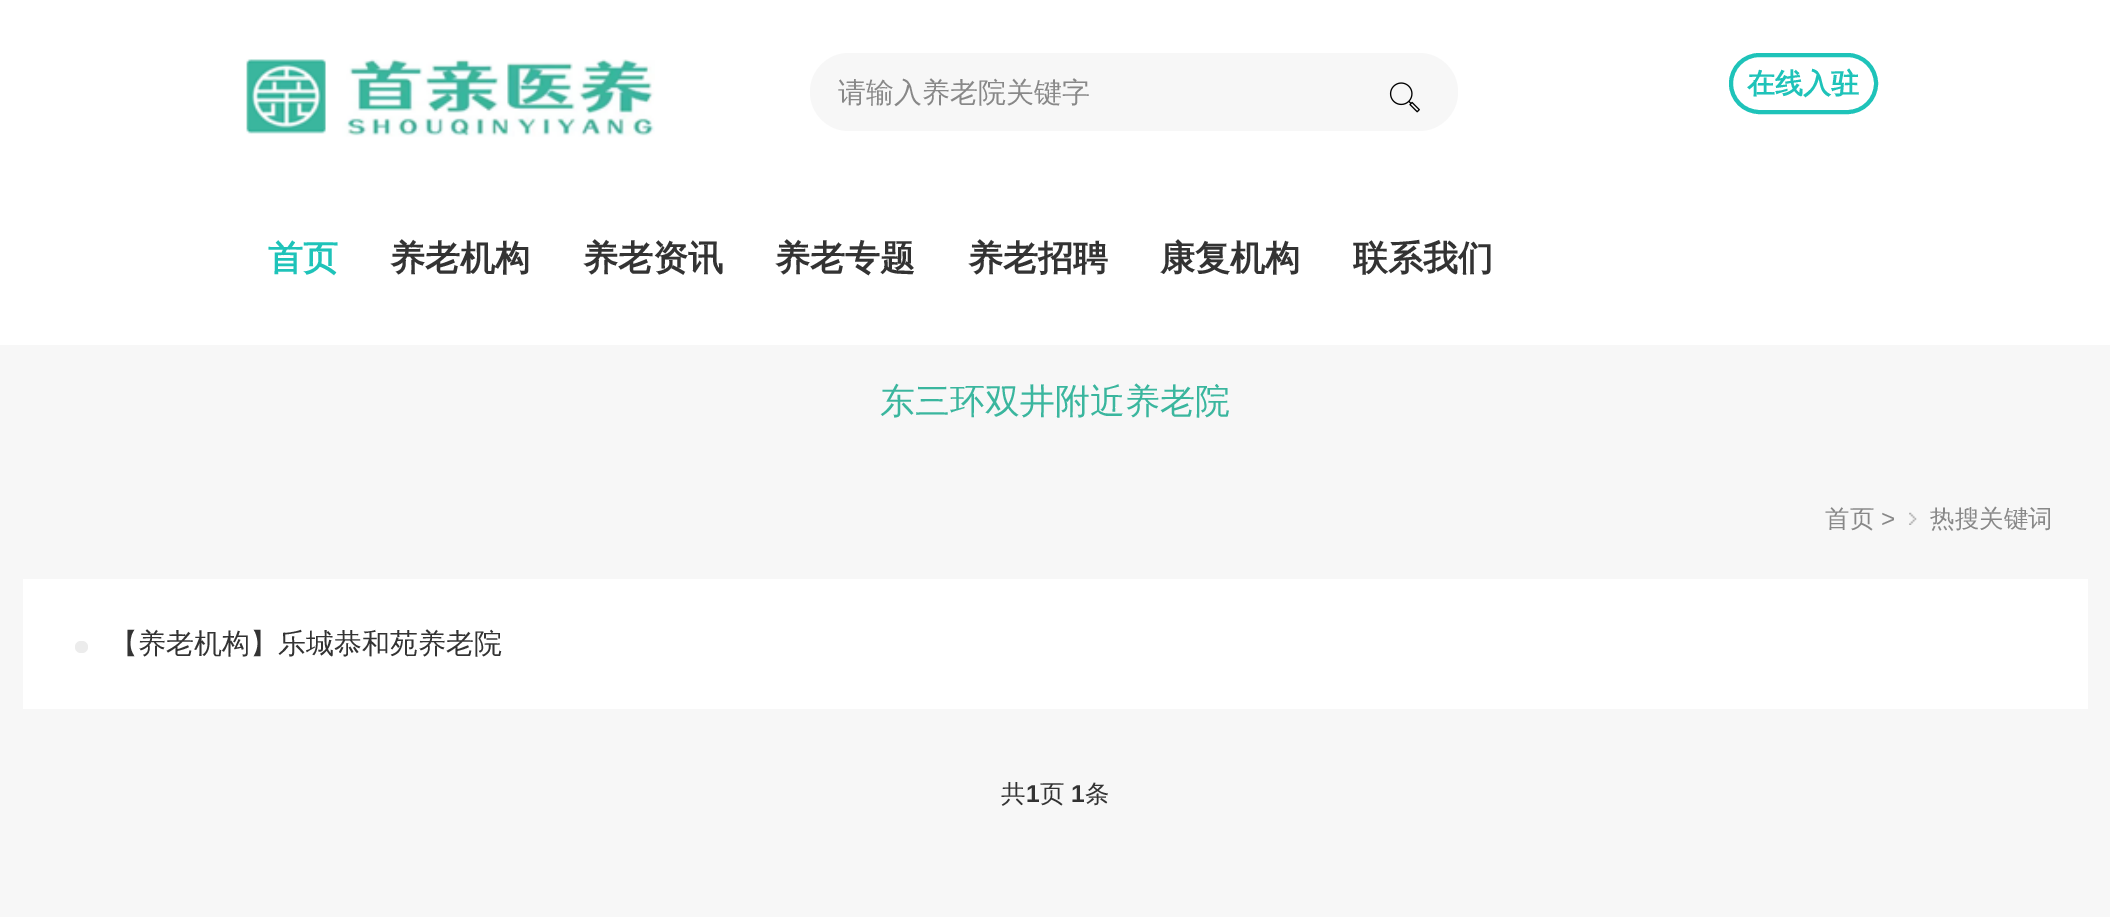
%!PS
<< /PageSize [2110 917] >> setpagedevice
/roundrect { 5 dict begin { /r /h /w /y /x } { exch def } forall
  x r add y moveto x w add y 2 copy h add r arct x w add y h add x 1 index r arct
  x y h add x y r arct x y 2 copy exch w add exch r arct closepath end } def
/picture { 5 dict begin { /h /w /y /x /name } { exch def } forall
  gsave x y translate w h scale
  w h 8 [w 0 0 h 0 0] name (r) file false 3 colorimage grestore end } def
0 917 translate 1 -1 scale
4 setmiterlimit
1 setgray
0 0 2110 917 rectfill
(img1.rgb) 246 59 409 78 picture
0.969 setgray
810 53 648 78 39 roundrect fill
/WenQuanYiZenHei-Medium [28 0 0 -28 0 0] selectfont
0.533 setgray
838 102 moveto (请输入养老院关键字) show
(img2.rgb) 1389 82 31 31 picture
0.118 0.765 0.725 setrgbcolor
4 setlinewidth
1731 55 145 57 28.5 roundrect stroke
/WenQuanYiZenHei-Bold [28 0 0 -28 0 0] selectfont
1747 93 moveto (在线入驻) show
/WenQuanYiZenHei-Bold [35 0 0 -35 0 0] selectfont
268 270 moveto (首页) show
0.2 setgray
390 270 moveto (养老机构) show
583 270 moveto (养老资讯) show
775 270 moveto (养老专题) show
968 270 moveto (养老招聘) show
1160 270 moveto (康复机构) show
1353 270 moveto (联系我们) show
0.969 setgray
0 345 2110 572 rectfill
/WenQuanYiZenHei-Medium [35 0 0 -35 0 0] selectfont
0.227 0.714 0.62 setrgbcolor
880 413 moveto (东三环双井附近养老院) show
/WenQuanYiZenHei-Medium [24.5 0 0 -24.5 0 0] selectfont
0.533 setgray
1825 527 moveto (首页) show
/LiberationSans-Regular [24.5 0 0 -24.5 0 0] selectfont
1881 527 moveto (>) show
(img3.rgb) 1909 512 8 13 picture
/WenQuanYiZenHei-Medium [24.5 0 0 -24.5 0 0] selectfont
1930 527 moveto (热搜关键词) show
1 setgray
23 579 2065 130 rectfill
0.925 setgray
75 641 13 12 6 roundrect fill
/WenQuanYiZenHei-Medium [28 0 0 -28 0 0] selectfont
0.2 setgray
110 653 moveto (【养老机构】乐城恭和苑养老院) show
/WenQuanYiZenHei-Medium [24.5 0 0 -24.5 0 0] selectfont
1001 802 moveto (共) show
/LiberationSans-Bold [24.5 0 0 -24.5 0 0] selectfont
1026 802 moveto (1) show
/WenQuanYiZenHei-Medium [24.5 0 0 -24.5 0 0] selectfont
1040 802 moveto (页) show
/LiberationSans-Bold [24.5 0 0 -24.5 0 0] selectfont
1071 802 moveto (1) show
/WenQuanYiZenHei-Medium [24.5 0 0 -24.5 0 0] selectfont
1085 802 moveto (条) show
showpage
